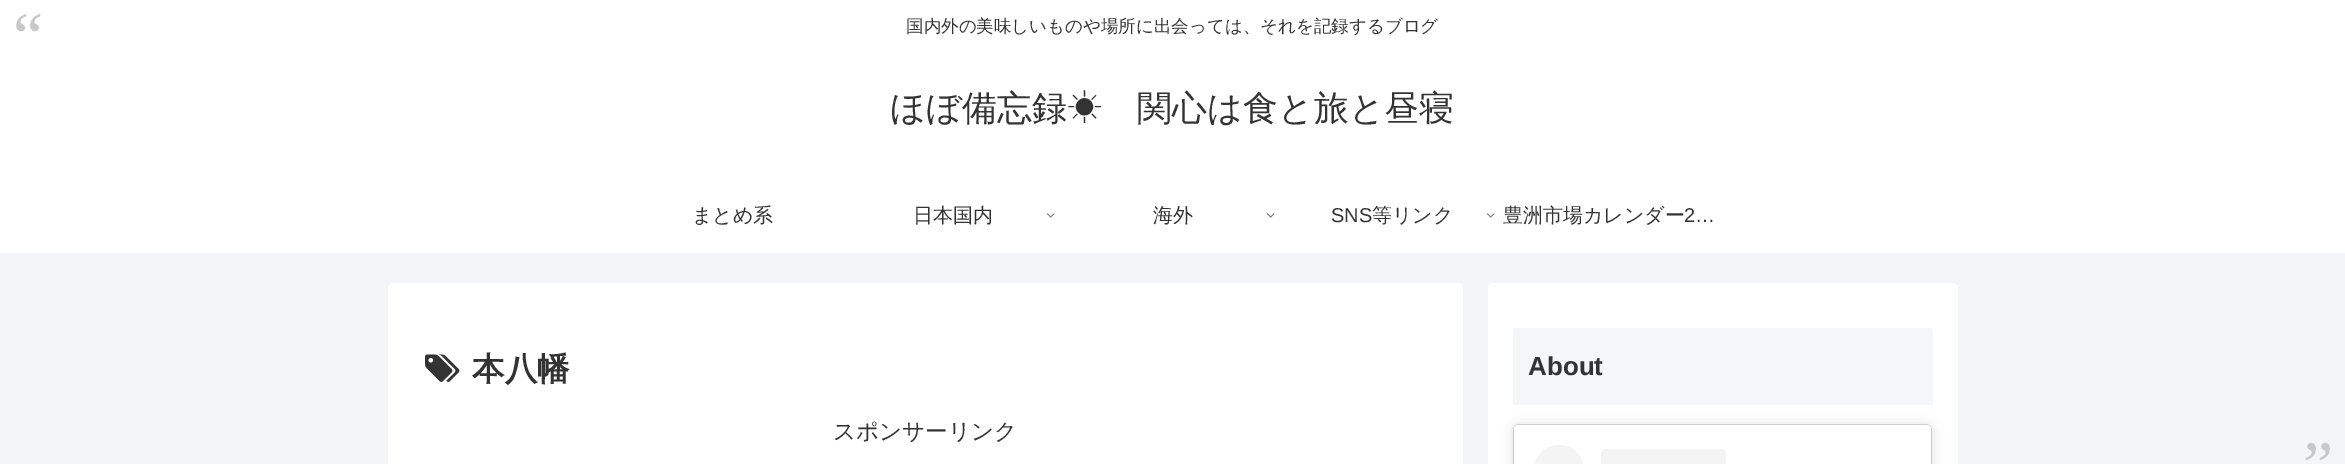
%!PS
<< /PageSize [2345 464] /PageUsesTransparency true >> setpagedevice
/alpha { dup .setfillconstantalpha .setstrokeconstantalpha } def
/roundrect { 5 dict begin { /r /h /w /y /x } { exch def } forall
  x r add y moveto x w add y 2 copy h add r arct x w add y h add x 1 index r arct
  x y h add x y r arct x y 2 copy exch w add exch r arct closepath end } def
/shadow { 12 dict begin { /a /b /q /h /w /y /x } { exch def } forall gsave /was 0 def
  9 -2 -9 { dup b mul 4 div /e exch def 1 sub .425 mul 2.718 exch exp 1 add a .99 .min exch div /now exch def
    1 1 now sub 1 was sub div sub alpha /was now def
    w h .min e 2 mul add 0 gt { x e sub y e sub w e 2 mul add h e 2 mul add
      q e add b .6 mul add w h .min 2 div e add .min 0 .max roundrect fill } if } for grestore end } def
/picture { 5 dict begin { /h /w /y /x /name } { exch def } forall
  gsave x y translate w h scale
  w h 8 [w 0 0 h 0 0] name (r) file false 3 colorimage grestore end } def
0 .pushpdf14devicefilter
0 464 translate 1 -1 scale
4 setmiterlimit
0.957 0.961 0.969 setrgbcolor
0 0 2345 464 rectfill
1 setgray
1488 283 470 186 5 roundrect fill
0 setgray
1514 426 417 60 4 6 0.15 shadow
1514 425 417 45 4 0.5 0.5 shadow
1 setgray
1514 425 417 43 4 roundrect fill
0 0 2345 253 rectfill
/LiberationSerif-Regular [68 0 0 -68 0 0] selectfont
0.784 setgray
13 59 moveto (“) show
0.957 setgray
1534 445 50 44 25 roundrect fill
1601 449 125 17 5 roundrect fill
0.784 setgray
2303 488 moveto (”) show
0.961 0.965 0.969 setrgbcolor
1513 328 420 77 2.5 roundrect fill
/LiberationSans-Bold [26 0 0 -26 0 0] selectfont
0.2 setgray
1528 375 moveto (About) show
1 setgray
388 283 1075 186 5 roundrect fill
(img1.rgb) 425 354 35 28 picture
/WenQuanYiZenHei-Bold [32.5 0 0 -32.5 0 0] selectfont
0.2 setgray
472 380 moveto (本八幡) show
/WenQuanYiZenHei-Medium [22.5 0 0 -22.5 0 0] selectfont
833 439 moveto (スポンサーリンク) show
/WenQuanYiZenHei-Medium [17.5 0 0 -17.5 0 0] selectfont
906 32 moveto (国内外の美味しいものや場所に出会っては、それを記録するブログ) show
/WenQuanYiZenHei-Medium [35 0 0 -35 0 0] selectfont
890 120 moveto (ほぼ備忘録) show
/IPAPGothic-Regular [35 0 0 -35 0 0] selectfont
1067 120 moveto (☀) show
/WenQuanYiZenHei-Medium [35 0 0 -35 0 0] selectfont
1137 120 moveto (関心は食と旅と昼寝) show
/WenQuanYiZenHei-Medium [20 0 0 -20 0 0] selectfont
692 222 moveto (まとめ系) show
913 222 moveto (日本国内) show
(img2.rgb) 1046 213 9 5 picture
1153 222 moveto (海外) show
(img2.rgb) 1266 213 9 5 picture
/LiberationSans-Regular [20 0 0 -20 0 0] selectfont
1331 222 moveto (SNS) show
/WenQuanYiZenHei-Medium [20 0 0 -20 0 0] selectfont
1372 222 moveto (等リンク) show
(img2.rgb) 1486 213 9 5 picture
1503 222 moveto (豊洲市場カレンダー) show
/LiberationSans-Regular [20 0 0 -20 0 0] selectfont
1684 222 moveto (2…) show
.poppdf14devicefilter showpage
